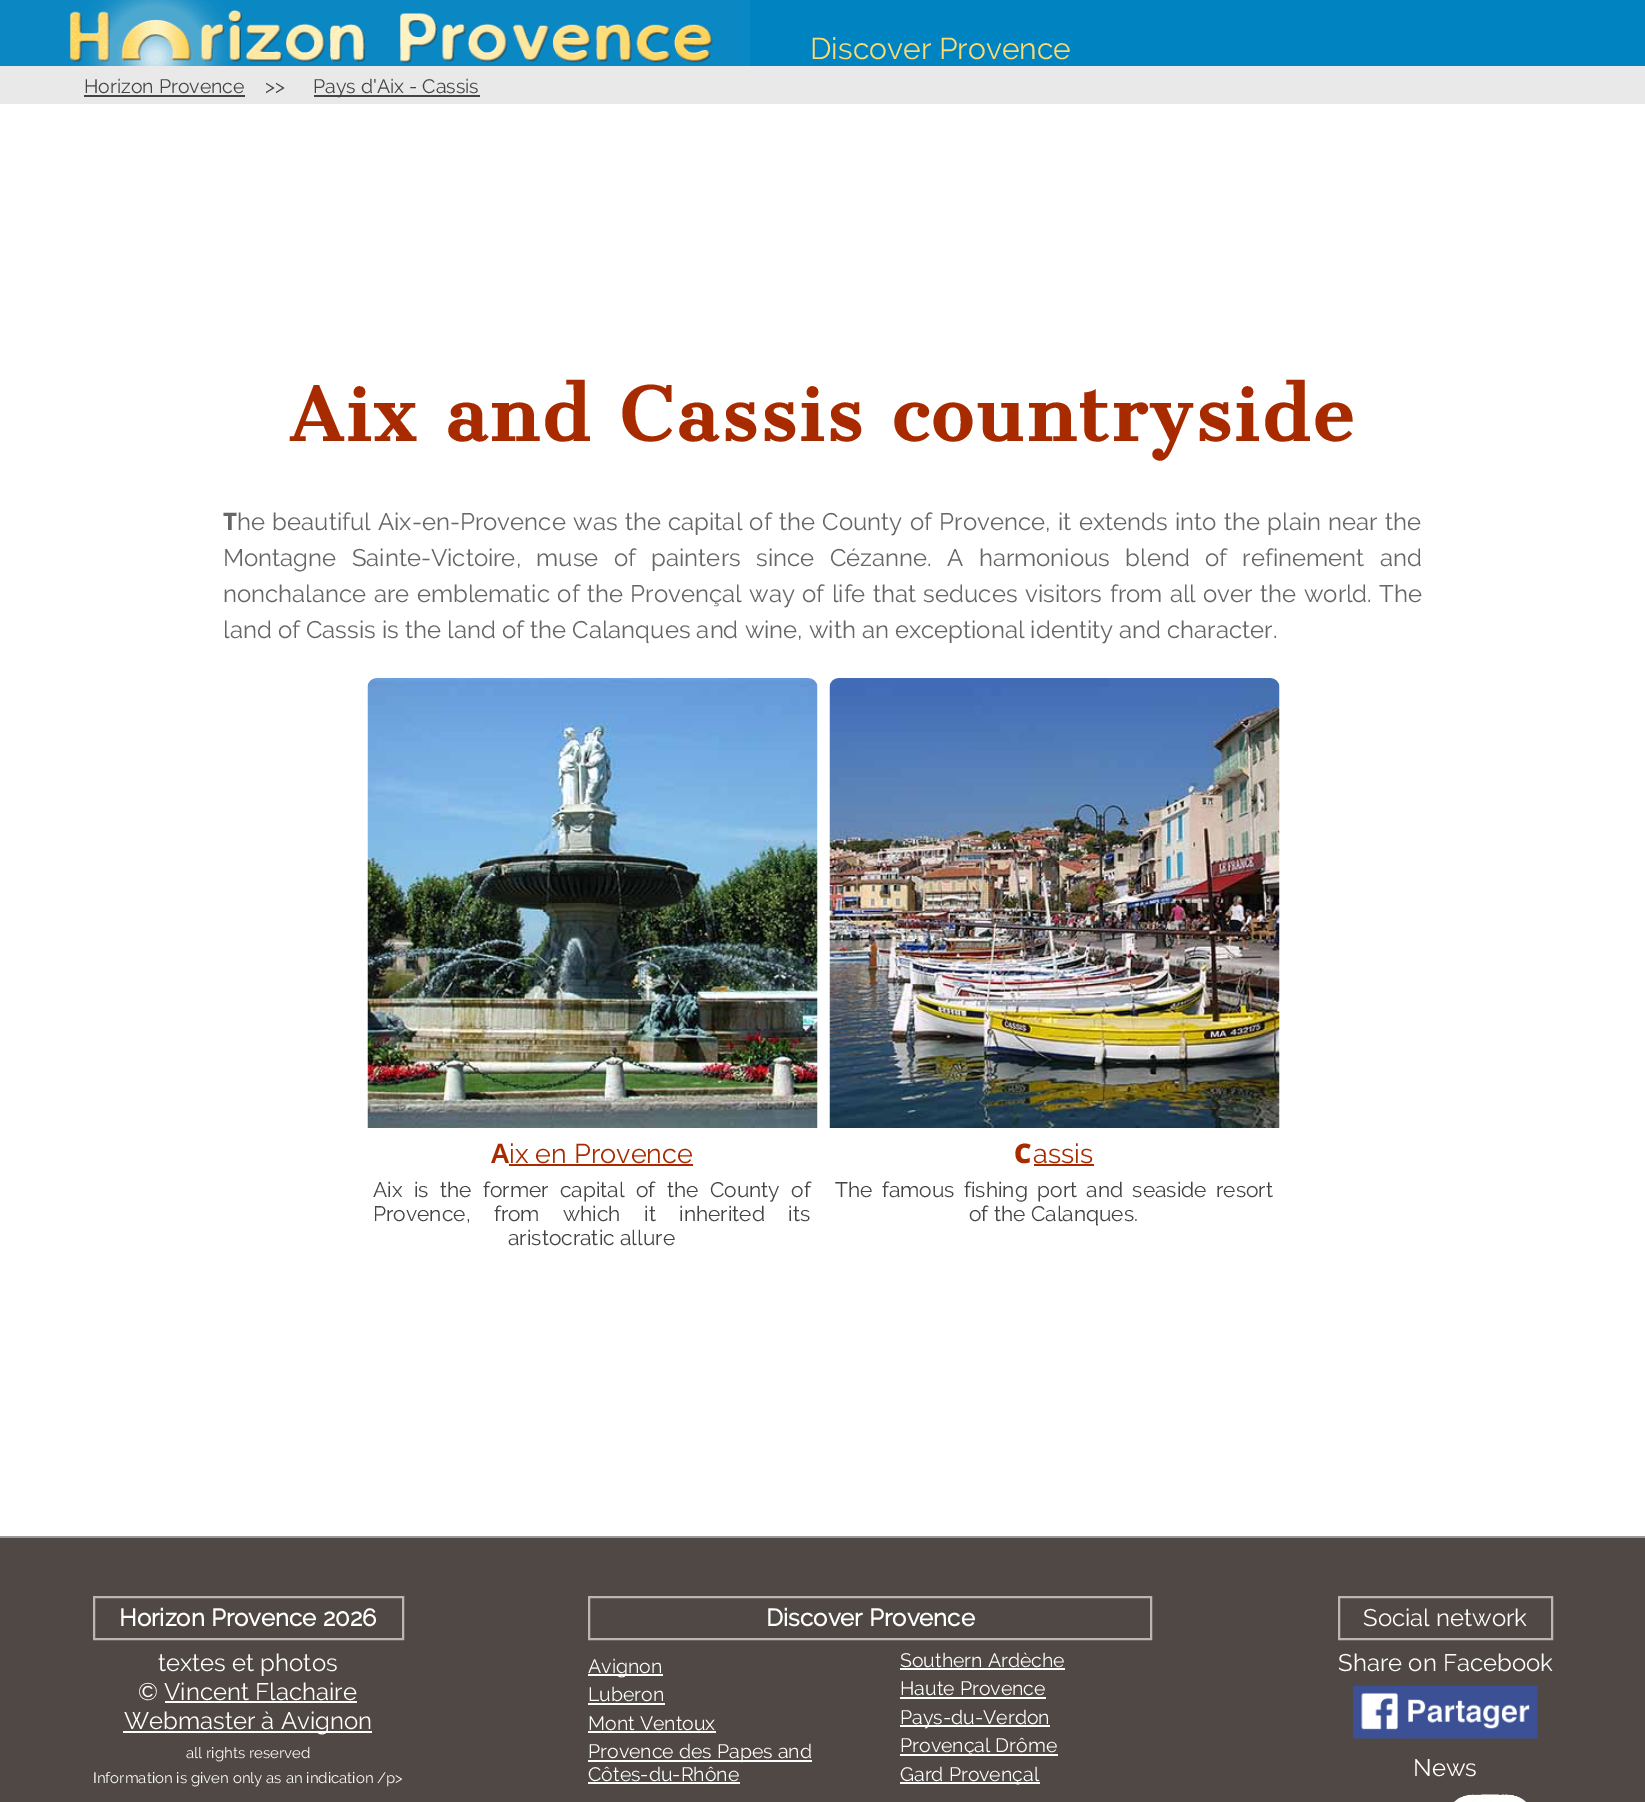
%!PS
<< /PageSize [1645 1802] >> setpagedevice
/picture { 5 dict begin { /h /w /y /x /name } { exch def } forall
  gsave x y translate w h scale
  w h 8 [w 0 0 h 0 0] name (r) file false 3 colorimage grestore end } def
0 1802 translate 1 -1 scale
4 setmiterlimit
1 setgray
0 0 1645 1802 rectfill
0 0.514 0.757 setrgbcolor
750 0 895 66 rectfill
(img1.rgb) 0 0 750 66 picture
/Raleway-Regular [30 0 0 -30 0 0] selectfont
0.992 0.859 0.451 setrgbcolor
810 59 moveto (Discover Provence) show
0.914 setgray
0 66 1645 38 rectfill
/Raleway-Regular [19.5 0 0 -19.5 0 0] selectfont
0.267 setgray
84 93 moveto (Horizon Provence) show
84 95 161 2 rectfill
265 93 moveto (>>) show
314 95 166 2 rectfill
313 93 moveto (Pays d'Aix - Cassis) show
/CantataOne-Bold [72 0 0 -72 0 0] selectfont
0.659 0.169 0 setrgbcolor
289 441 moveto 3 0 (Aix and Cassis countryside) ashow
/NotoSans-Bold [24 0 0 -24 0 0] selectfont
0.4 setgray
223 530 moveto (T) show
/Raleway-Regular [24 0 0 -24 0 0] selectfont
237 530 moveto 1.25 0 32 (he beautiful Aix-en-Provence was the capital of the County of Provence, it extends into the plain near the) widthshow
223 566 moveto 9.25 0 32 (Montagne Sainte-Victoire, muse of painters since Cézanne. A harmonious blend of refinement and) widthshow
223 602 moveto 1.3 0 32 (nonchalance are emblematic of the Provençal way of life that seduces visitors from all over the world. The) widthshow
223 638 moveto (land of Cassis is the land of the Calanques and wine, with an exceptional identity and character.) show
(img2.rgb) 367 678 451 450 picture
/NotoSans-SemiBold [27 0 0 -27 0 0] selectfont
0.659 0.169 0 setrgbcolor
491 1163 moveto (A) show
/Raleway-Regular [27 0 0 -27 0 0] selectfont
509 1163 moveto (ix en Provence) show
509 1164 184 2 rectfill
/Raleway-Regular [21 0 0 -21 0 0] selectfont
0.267 setgray
373 1197 moveto 6 0 32 (Aix is the former capital of the County of) widthshow
373 1221 moveto 18 0 32 (Provence, from which it inherited its) widthshow
508 1245 moveto (aristocratic allure) show
(img3.rgb) 829 678 451 450 picture
/NotoSans-Black [27 0 0 -27 0 0] selectfont
0.659 0.169 0 setrgbcolor
1014 1163 moveto (C) show
/Raleway-Regular [27 0 0 -27 0 0] selectfont
1033 1163 moveto (assis) show
1034 1164 60 2 rectfill
/Raleway-Regular [21 0 0 -21 0 0] selectfont
0.267 setgray
835 1197 moveto 4 0 32 (The famous fishing port and seaside resort) widthshow
969 1221 moveto (of the Calanques.) show
0.31 0.282 0.267 setrgbcolor
0 1538 1645 264 rectfill
0.6 setgray
0 1536 1645 2 rectfill
0.725 0.714 0.706 setrgbcolor
2 setlinewidth
94 1597 309 42 rectstroke
/Raleway-Bold [24 0 0 -24 0 0] selectfont
1 setgray
119 1626 moveto (Horizon Provence 2026) show
/Raleway-Regular [24 0 0 -24 0 0] selectfont
158 1671 moveto (textes et photos) show
138 1700 moveto (© Vincent Flachaire) show
123 1731 249 2 rectfill
124 1729 moveto (Webmaster à Avignon) show
165 1701 192 2 rectfill
/Raleway-Regular [15 0 0 -15 0 0] selectfont
186 1758 moveto (all rights reserved) show
93 1783 moveto (Information is given only as an indication /p>) show
0.725 0.714 0.706 setrgbcolor
589 1597 562 42 rectstroke
/Raleway-Bold [24 0 0 -24 0 0] selectfont
1 setgray
766 1626 moveto (Discover Provence) show
588 1674 75 2 rectfill
/Raleway-Regular [19.5 0 0 -19.5 0 0] selectfont
588 1673 moveto (Avignon) show
900 1667 moveto (Southern Ardèche) show
900 1668 165 2 rectfill
588 1701 moveto (Luberon) show
588 1703 77 2 rectfill
900 1695 moveto (Haute Provence) show
900 1697 146 2 rectfill
588 1730 moveto (Mont Ventoux) show
588 1731 128 2 rectfill
900 1725 150 2 rectfill
900 1724 moveto (Pays-du-Verdon) show
588 1760 224 2 rectfill
588 1758 moveto (Provence des Papes and) show
588 1781 moveto (Côtes-du-Rhône) show
588 1782 152 2 rectfill
900 1754 158 2 rectfill
900 1752 moveto (Provençal Drôme) show
900 1782 140 2 rectfill
900 1781 moveto (Gard Provençal) show
0.725 0.714 0.706 setrgbcolor
1339 1597 213 42 rectstroke
/Raleway-Regular [24 0 0 -24 0 0] selectfont
1 setgray
1363 1626 moveto (Social network) show
1338 1671 moveto (Share on Facebook) show
(img4.rgb) 1353 1686 185 53 picture
1413 1776 moveto (News) show
(img5.rgb) 1454 1794 72 8 picture
showpage
